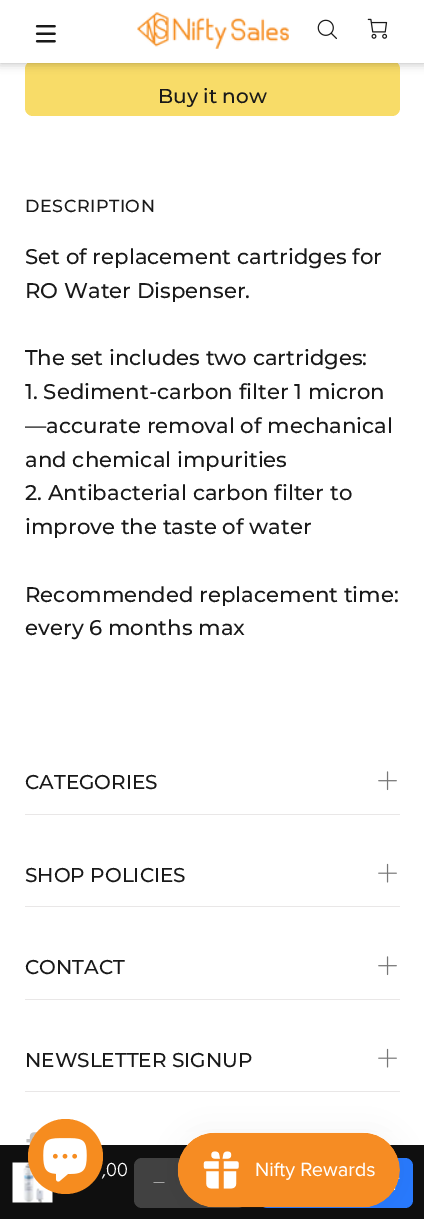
%!PS
<< /PageSize [424 1219] /PageUsesTransparency true >> setpagedevice
/alpha { dup .setfillconstantalpha .setstrokeconstantalpha } def
/roundrect { 5 dict begin { /r /h /w /y /x } { exch def } forall
  x r add y moveto x w add y 2 copy h add r arct x w add y h add x 1 index r arct
  x y h add x y r arct x y 2 copy exch w add exch r arct closepath end } def
/shadow { 12 dict begin { /a /b /q /h /w /y /x } { exch def } forall gsave /was 0 def
  9 -2 -9 { dup b mul 4 div /e exch def 1 sub .425 mul 2.718 exch exp 1 add a .99 .min exch div /now exch def
    1 1 now sub 1 was sub div sub alpha /was now def
    w h .min e 2 mul add 0 gt { x e sub y e sub w e 2 mul add h e 2 mul add
      q e add b .6 mul add w h .min 2 div e add .min 0 .max roundrect fill } if } for grestore end } def
/picture { 5 dict begin { /h /w /y /x /name } { exch def } forall
  gsave x y translate w h scale
  w h 8 [w 0 0 h 0 0] name (r) file false 3 colorimage grestore end } def
0 .pushpdf14devicefilter
0 1219 translate 1 -1 scale
4 setmiterlimit
1 setgray
0 0 424 1219 rectfill
0.973 0.863 0.408 setrgbcolor
25 61 375 55 8 roundrect fill
0 setgray
0 0 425 63 0 5 0.3 shadow
1 setgray
0 0 424 63 rectfill
(img1.rgb) 35 25 21 18 picture
(img2.rgb) 137 12 152 37 picture
(img3.rgb) 317 19 20 21 picture
(img4.rgb) 367 18 21 21 picture
/Montserrat-Medium [20 0 0 -20 0 0] selectfont
0.098 setgray
158 103 moveto (Buy it now) show
/Montserrat-Medium [17.5 0 0 -17.5 0 0] selectfont
25 212 moveto 0.5 0 (DESCRIPTION) ashow
/Montserrat-Medium [21.25 0 0 -21.25 0 0] selectfont
25 264 moveto (Set of replacement cartridges for) show
25 298 moveto (RO Water Dispenser.) show
25 365 moveto (The set includes two cartridges:) show
25 399 moveto (1. Sediment-carbon filter 1 micron) show
25 433 moveto (—accurate removal of mechanical) show
25 467 moveto (and chemical impurities) show
25 500 moveto (2. Antibacterial carbon filter to) show
25 534 moveto (improve the taste of water) show
25 602 moveto (Recommended replacement time:) show
25 635 moveto (every 6 months max) show
0.059 setgray
0 1145 424 74 rectfill
(img5.rgb) 12 1162 41 41 picture
/Hind-Light [20 0 0 -20 0 0] selectfont
1 setgray
102 1176 moveto (,00) show
0.255 setgray
134 1158 112 50 8 roundrect fill
1 setgray
newpath 164.5 1182 moveto 164.5 1182.5 lineto 153.5 1182.5 lineto 153.5 1182 lineto closepath fill
0.157 0.475 0.996 setrgbcolor
259 1158 154 50 8 roundrect fill
0.914 0.906 0.906 setrgbcolor
25 814 375 1 rectfill
/Montserrat-Medium [20 0 0 -20 0 0] selectfont
0.098 setgray
25 789 moveto (CATEGORIES) show
(img6.rgb) 378 771 19 20 picture
0.914 0.906 0.906 setrgbcolor
25 906 375 1 rectfill
0.098 setgray
25 882 moveto (SHOP POLICIES) show
(img7.rgb) 378 863 19 20 picture
0.914 0.906 0.906 setrgbcolor
25 999 375 1 rectfill
0.098 setgray
25 974 moveto (CONTACT) show
(img6.rgb) 378 956 19 20 picture
0.914 0.906 0.906 setrgbcolor
25 1091 375 1 rectfill
0.098 setgray
25 1067 moveto (NEWSLETTER SIGNUP) show
(img7.rgb) 378 1048 19 20 picture
(img8.rgb) 26 1132 12 13 picture
0.965 0.549 0.122 setrgbcolor
newpath 65.5 1156.5 37.5 0 360 arc closepath fill
(img9.rgb) 43 1138 44 44 picture
0 setgray
178 1133 222 75 37.5 15.5 0.05 shadow
(img10.rgb) 177 1132 223 76 picture
.poppdf14devicefilter showpage
